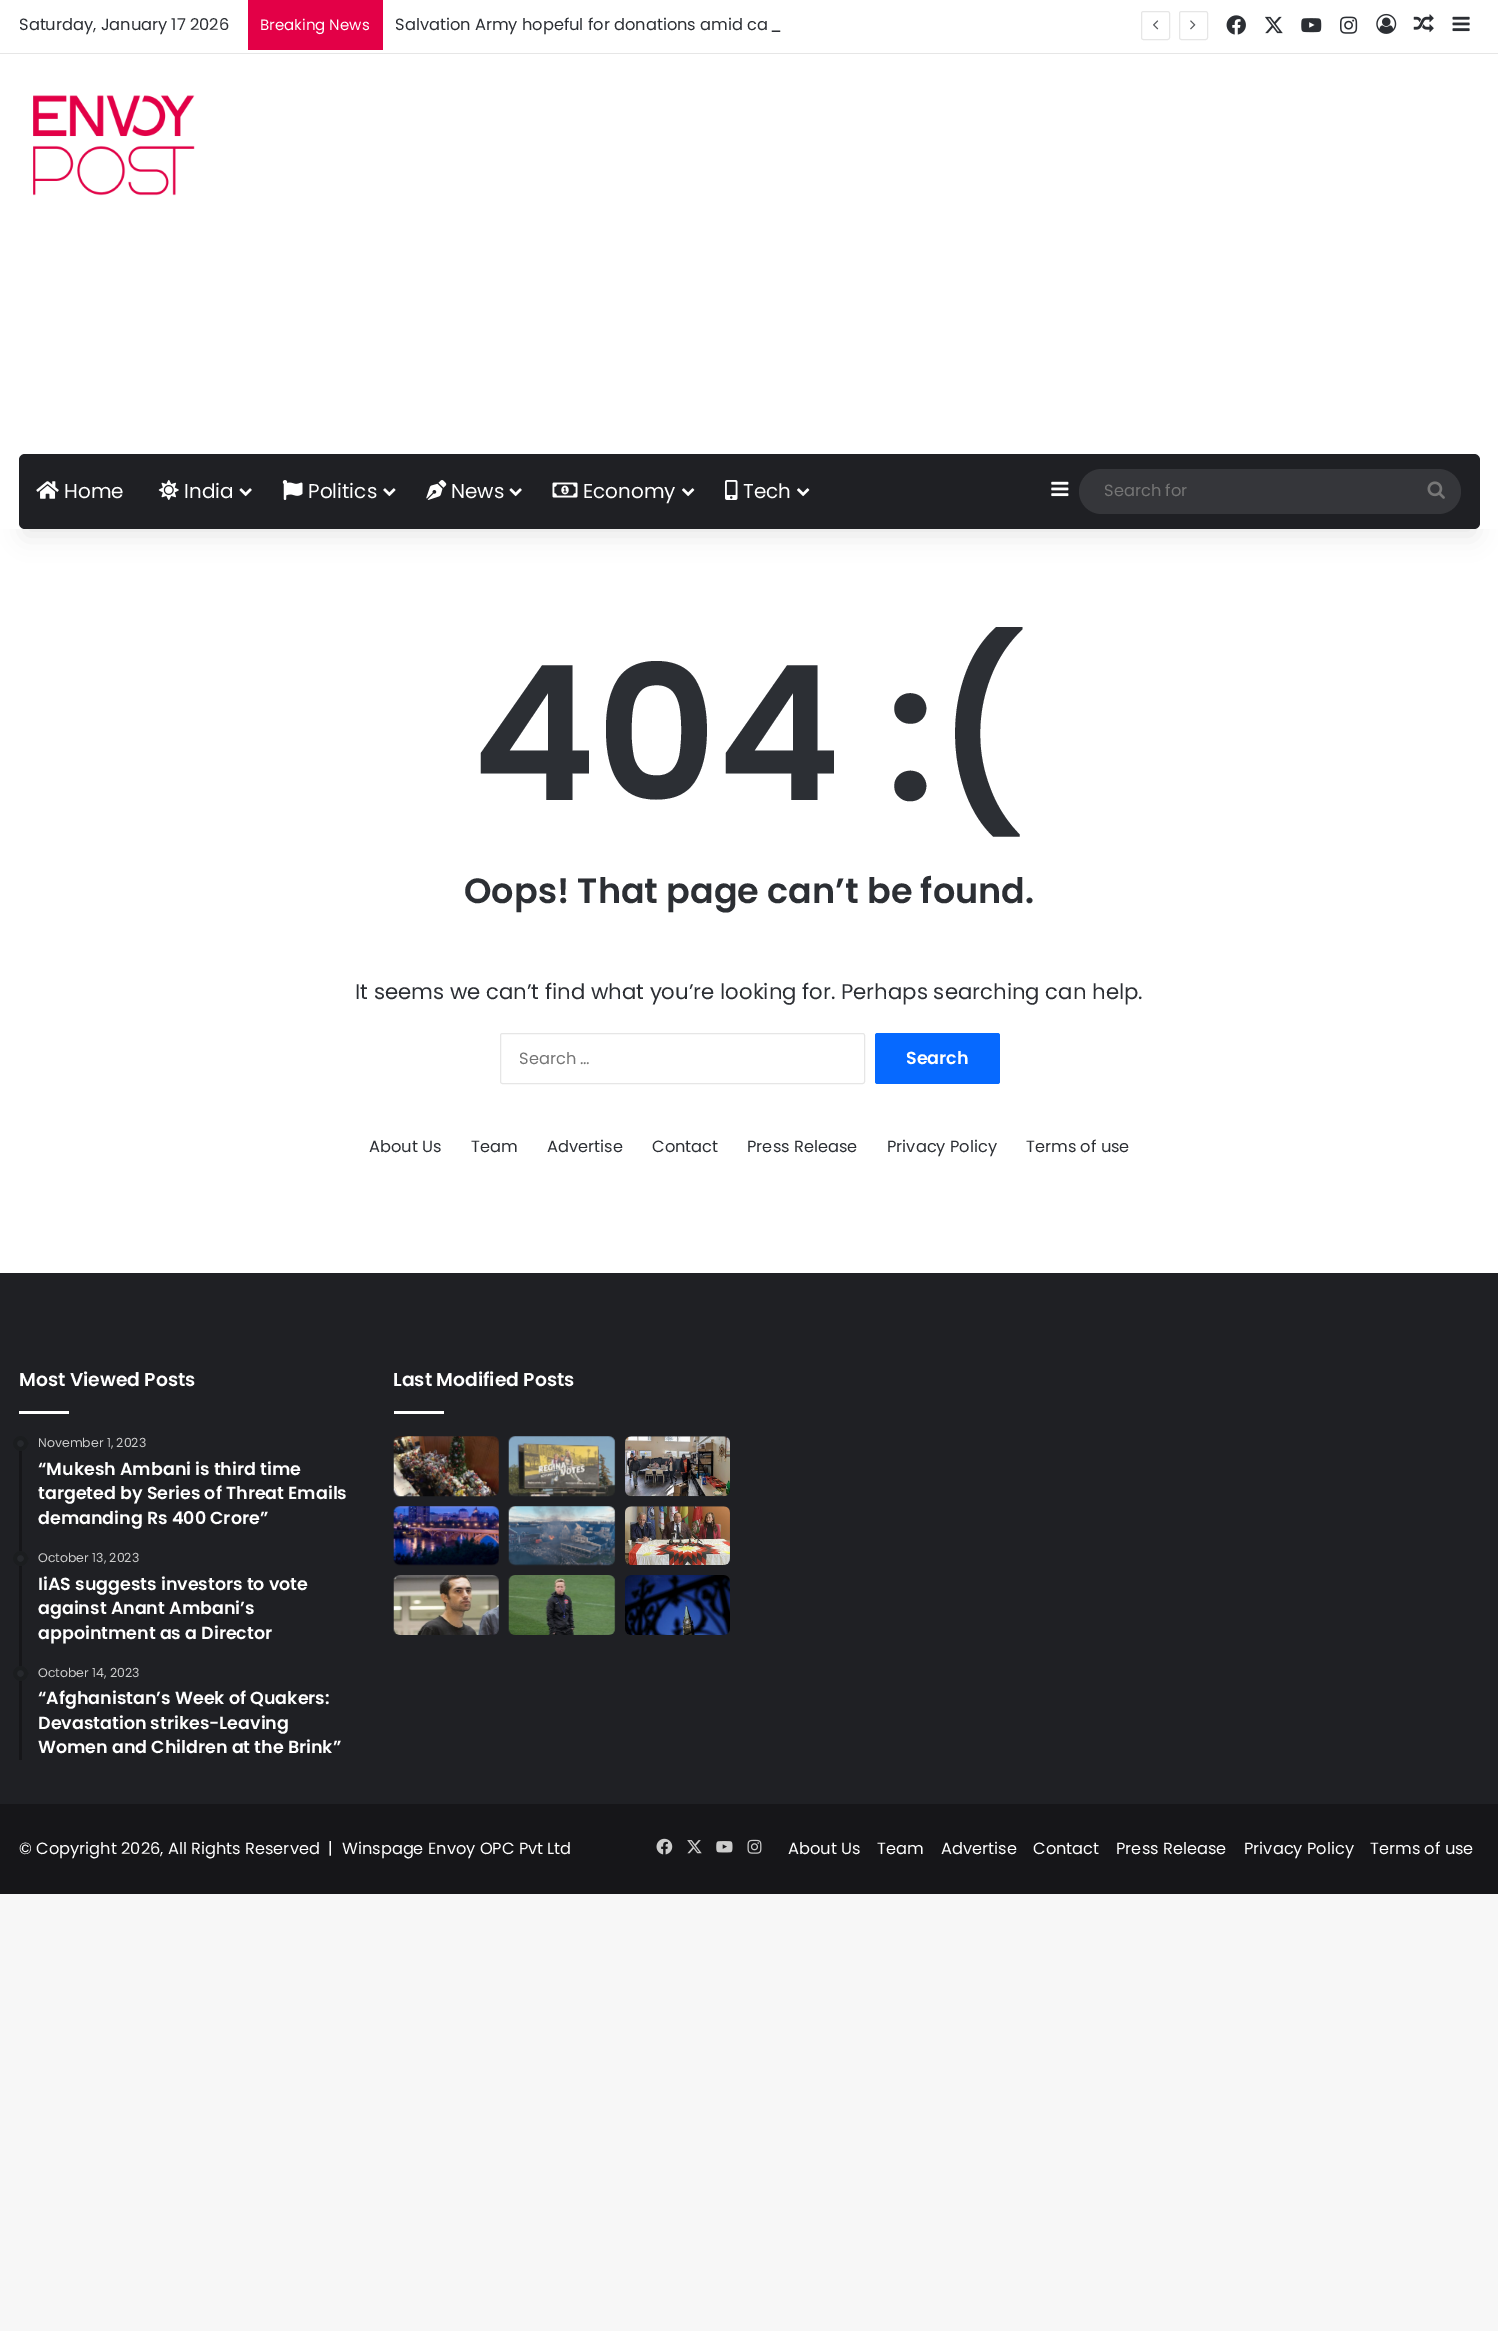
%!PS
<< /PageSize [1498 2331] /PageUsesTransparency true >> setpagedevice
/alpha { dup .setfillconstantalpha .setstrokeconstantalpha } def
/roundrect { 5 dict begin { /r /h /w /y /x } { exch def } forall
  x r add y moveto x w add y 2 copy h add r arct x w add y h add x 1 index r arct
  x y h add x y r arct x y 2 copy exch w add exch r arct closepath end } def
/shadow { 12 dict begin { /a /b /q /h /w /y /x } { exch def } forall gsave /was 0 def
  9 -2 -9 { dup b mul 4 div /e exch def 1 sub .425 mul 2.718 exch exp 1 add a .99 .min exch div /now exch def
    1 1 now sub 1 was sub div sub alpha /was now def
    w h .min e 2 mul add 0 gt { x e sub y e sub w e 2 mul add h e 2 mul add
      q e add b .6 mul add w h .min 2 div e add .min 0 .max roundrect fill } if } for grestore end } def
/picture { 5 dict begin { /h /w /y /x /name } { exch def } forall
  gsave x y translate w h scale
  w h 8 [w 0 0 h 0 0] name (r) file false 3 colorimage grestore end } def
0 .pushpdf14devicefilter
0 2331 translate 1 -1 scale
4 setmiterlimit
0.969 setgray
0 0 1498 2331 rectfill
1 setgray
0 529 1498 744 rectfill
0 setgray
25 56 1449 479 0 12.5 0.1 shadow
1 setgray
0 0 1498 529 rectfill
0.902 setgray
0 53 1498 1 rectfill
/Poppins-Regular [16.25 0 0 -16.25 0 0] selectfont
0.173 0.184 0.204 setrgbcolor
19 30 moveto (Saturday, January 17 2026) show
0.89 0 0.278 setrgbcolor
248 0 135 50 rectfill
/Poppins-Regular [15 0 0 -15 0 0] selectfont
1 setgray
260 30 moveto (Breaking News) show
/Poppins-Regular [16.25 0 0 -16.25 0 0] selectfont
0.173 0.184 0.204 setrgbcolor
395 30 moveto (Salvation Army hopeful for donations amid ca) show
770 30 moveto (_) show
0.902 setgray
1141.5 11.5 28 28 2 roundrect stroke
(img1.rgb) 1153 20 6 10 picture
1179.5 11.5 28 28 2 roundrect stroke
(img2.rgb) 1190 20 6 10 picture
(img3.rgb) 1226 15 20 20 picture
(img4.rgb) 1265 16 18 18 picture
(img5.rgb) 1301 18 21 15 picture
(img6.rgb) 1340 16 18 18 picture
(img7.rgb) 1376 13 21 21 picture
(img8.rgb) 1413 14 21 19 picture
(img9.rgb) 1452 16 18 16 picture
(img10.rgb) 33 95 162 101 picture
0.122 0.125 0.141 setrgbcolor
19 454 1461 75 6 roundrect fill
(img11.rgb) 36 481 23 18 picture
/Poppins-Regular [20 0 0 -20 0 0] selectfont
1 setgray
64 498 moveto (Home) show
(img12.rgb) 158 480 21 20 picture
184 498 moveto (India) show
(img13.rgb) 239 488 13 9 picture
(img14.rgb) 282 480 21 20 picture
308 498 moveto (Politics) show
(img15.rgb) 383 488 13 9 picture
(img16.rgb) 426 480 21 20 picture
451 498 moveto (News) show
(img13.rgb) 509 488 13 9 picture
(img17.rgb) 552 482 26 16 picture
583 498 moveto (Economy) show
(img18.rgb) 682 488 13 9 picture
(img19.rgb) 725 480 13 20 picture
743 498 moveto (Tech) show
(img18.rgb) 797 488 13 9 picture
(img20.rgb) 1051 481 18 16 picture
0.208 0.212 0.227 setrgbcolor
1079 469 382 45 22.5 roundrect fill
/Poppins-Regular [16.25 0 0 -16.25 0 0] selectfont
0.459 setgray
1104 496 moveto (Search for) show
(img21.rgb) 1427 481 18 18 picture
/Poppins-SemiBold [187.5 0 0 -187.5 0 0] selectfont
0.173 0.184 0.204 setrgbcolor
472 800 moveto (404 :\() show
/Poppins-SemiBold [35 0 0 -35 0 0] selectfont
464 903 moveto (Oops! That page can’t be found.) show
/Poppins-Regular [21.25 0 0 -21.25 0 0] selectfont
355 999 moveto (It seems we can’t find what you’re looking for. Perhaps searching can help.) show
0.902 setgray
500.5 1033.5 364 50 2 roundrect stroke
/Poppins-Regular [16.25 0 0 -16.25 0 0] selectfont
0.459 setgray
519 1064 moveto (Search …) show
0.024 0.412 1 setrgbcolor
875 1033 125 51 2.5 roundrect fill
/Poppins-SemiBold [17.5 0 0 -17.5 0 0] selectfont
1 setgray
906 1064 moveto (Search) show
/Poppins-Regular [16.25 0 0 -16.25 0 0] selectfont
0.173 0.184 0.204 setrgbcolor
369 1152 moveto (About Us) show
471 1152 moveto (Team) show
547 1152 moveto (Advertise) show
652 1152 moveto (Contact) show
747 1152 moveto (Press Release) show
887 1152 moveto (Privacy Policy) show
1026 1152 moveto (Terms of use) show
0.122 0.125 0.141 setrgbcolor
0 1273 1498 531 rectfill
/Poppins-SemiBold [18.75 0 0 -18.75 0 0] selectfont
1 setgray
19 1386 moveto (Most Viewed Posts) show
19 1411 50 3 rectfill
0.086 0.086 0.098 setrgbcolor
19 1436 3 324 rectfill
0.153 0.161 0.176 setrgbcolor
newpath 20.5 1443.5 7.5 0 360 arc closepath fill
0.3 alpha
0 setgray
4 setlinewidth
newpath 20.5 1443.5 5.5 0 360 arc closepath stroke
/Poppins-Regular [12.5 0 0 -12.5 0 0] selectfont
1 alpha
0.8 setgray
38 1447 moveto (November 1, 2023) show
/Poppins-SemiBold [17.5 0 0 -17.5 0 0] selectfont
1 setgray
38 1475 moveto (“Mukesh Ambani is third time) show
38 1499 moveto (targeted by Series of Threat Emails) show
38 1524 moveto (demanding Rs 400 Crore”) show
0.153 0.161 0.176 setrgbcolor
newpath 20.5 1558.5 7.5 0 360 arc closepath fill
0.3 alpha
0 setgray
newpath 20.5 1558.5 5.5 0 360 arc closepath stroke
/Poppins-Regular [12.5 0 0 -12.5 0 0] selectfont
1 alpha
0.8 setgray
38 1562 moveto (October 13, 2023) show
/Poppins-SemiBold [17.5 0 0 -17.5 0 0] selectfont
1 setgray
38 1590 moveto (IiAS suggests investors to vote) show
38 1614 moveto (against Anant Ambani’s) show
38 1639 moveto (appointment as a Director) show
0.153 0.161 0.176 setrgbcolor
newpath 20.5 1673.5 7.5 0 360 arc closepath fill
0.3 alpha
0 setgray
newpath 20.5 1673.5 5.5 0 360 arc closepath stroke
/Poppins-Regular [12.5 0 0 -12.5 0 0] selectfont
1 alpha
0.8 setgray
38 1677 moveto (October 14, 2023) show
/Poppins-SemiBold [17.5 0 0 -17.5 0 0] selectfont
1 setgray
38 1704 moveto (“Afghanistan’s Week of Quakers:) show
38 1729 moveto (Devastation strikes-Leaving) show
38 1753 moveto (Women and Children at the Brink”) show
/Poppins-SemiBold [18.75 0 0 -18.75 0 0] selectfont
393 1386 moveto (Last Modified Posts) show
394 1411 50 3 rectfill
(img22.rgb) 393 1436 106 61 picture
(img23.rgb) 508 1436 108 61 picture
(img24.rgb) 625 1436 105 61 picture
(img25.rgb) 393 1506 106 60 picture
(img26.rgb) 508 1506 108 60 picture
(img27.rgb) 625 1506 105 59 picture
(img28.rgb) 393 1575 106 60 picture
(img29.rgb) 508 1575 108 60 picture
(img30.rgb) 625 1575 105 60 picture
0.086 0.086 0.098 setrgbcolor
0 1804 1498 90 rectfill
/Poppins-Regular [16.25 0 0 -16.25 0 0] selectfont
1 setgray
19 1854 moveto (© Copyright 2026, All Rights Reserved  |  Winspage Envoy OPC Pvt Ltd) show
(img31.rgb) 656 1838 17 17 picture
(img32.rgb) 687 1840 15 14 picture
(img33.rgb) 716 1841 17 12 picture
(img34.rgb) 747 1839 15 15 picture
788 1854 moveto (About Us) show
877 1854 moveto (Team) show
941 1854 moveto (Advertise) show
1033 1854 moveto (Contact) show
1116 1854 moveto (Press Release) show
1244 1854 moveto (Privacy Policy) show
1370 1854 moveto (Terms of use) show
.poppdf14devicefilter showpage
